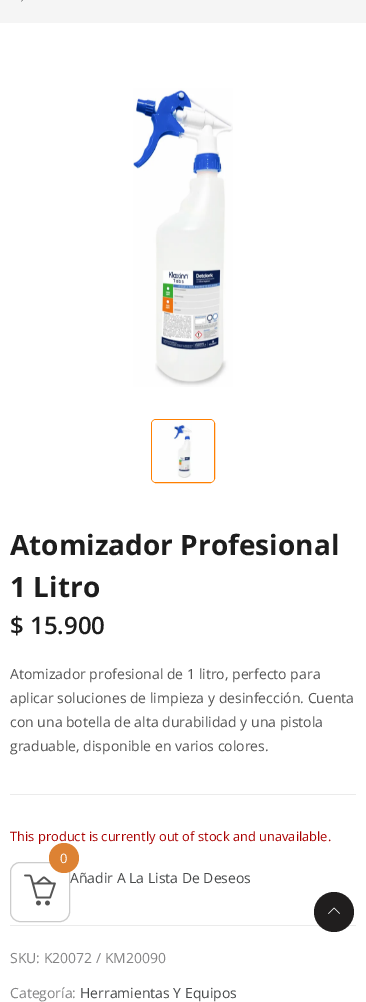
%!PS
<< /PageSize [366 1002] >> setpagedevice
/roundrect { 5 dict begin { /r /h /w /y /x } { exch def } forall
  x r add y moveto x w add y 2 copy h add r arct x w add y h add x 1 index r arct
  x y h add x y r arct x y 2 copy exch w add exch r arct closepath end } def
/picture { 5 dict begin { /h /w /y /x /name } { exch def } forall
  gsave x y translate w h scale
  w h 8 [w 0 0 h 0 0] name (r) file false 3 colorimage grestore end } def
0 1002 translate 1 -1 scale
4 setmiterlimit
1 setgray
0 0 366 1002 rectfill
0.961 setgray
0 0 366 23 rectfill
(img1.rgb) 21 0 2 2 picture
(img2.rgb) 133 88 100 299 picture
1 0.498 0 setrgbcolor
151.5 419.5 63 63 4.5 roundrect stroke
(img3.rgb) 152 420 62 62 picture
/OpenSans-Bold [28 0 0 -28 0 0] selectfont
0.114 setgray
10 555 moveto (Atomizador Profesional) show
10 597 moveto (1 Litro) show
/OpenSans-SemiBold [24 0 0 -24 0 0] selectfont
10 634 moveto ($ 15.900) show
0.922 setgray
10 794 346 1 rectfill
/OpenSans-Regular [14 0 0 -14 0 0] selectfont
0.333 setgray
10 679 moveto (Atomizador profesional de 1 litro, perfecto para) show
10 703 moveto (aplicar soluciones de limpieza y desinfección. Cuenta) show
10 727 moveto (con una botella de alta durabilidad y una pistola) show
10 751 moveto (graduable, disponible en varios colores.) show
/OpenSans-Regular [12.9 0 0 -12.9 0 0] selectfont
0.667 0 0 setrgbcolor
10 841 moveto (This product is currently out of stock and unavailable.) show
/OpenSans-Regular [14 0 0 -14 0 0] selectfont
0.278 0.286 0.29 setrgbcolor
70 883 moveto (Añadir A La Lista De Deseos) show
0.922 setgray
10 925 346 1 rectfill
0.518 0.518 0.522 setrgbcolor
10 963 moveto (SKU: K20072 / KM20090) show
10 998 moveto (Categoría:) show
0.278 0.286 0.29 setrgbcolor
80 998 moveto (Herramientas Y Equipos) show
0.8 setgray
10.5 862.5 59 59 9.5 roundrect stroke
0.867 0.51 0.2 setrgbcolor
newpath 64 858 15 0 360 arc closepath fill
/OpenSans-Regular [13 0 0 -13 0 0] selectfont
1 setgray
60 863 moveto (0) show
(img4.rgb) 24 874 32 32 picture
0.125 0.118 0.118 setrgbcolor
newpath 334 912 20 0 360 arc closepath fill
(img5.rgb) 328 907 12 7 picture
showpage
